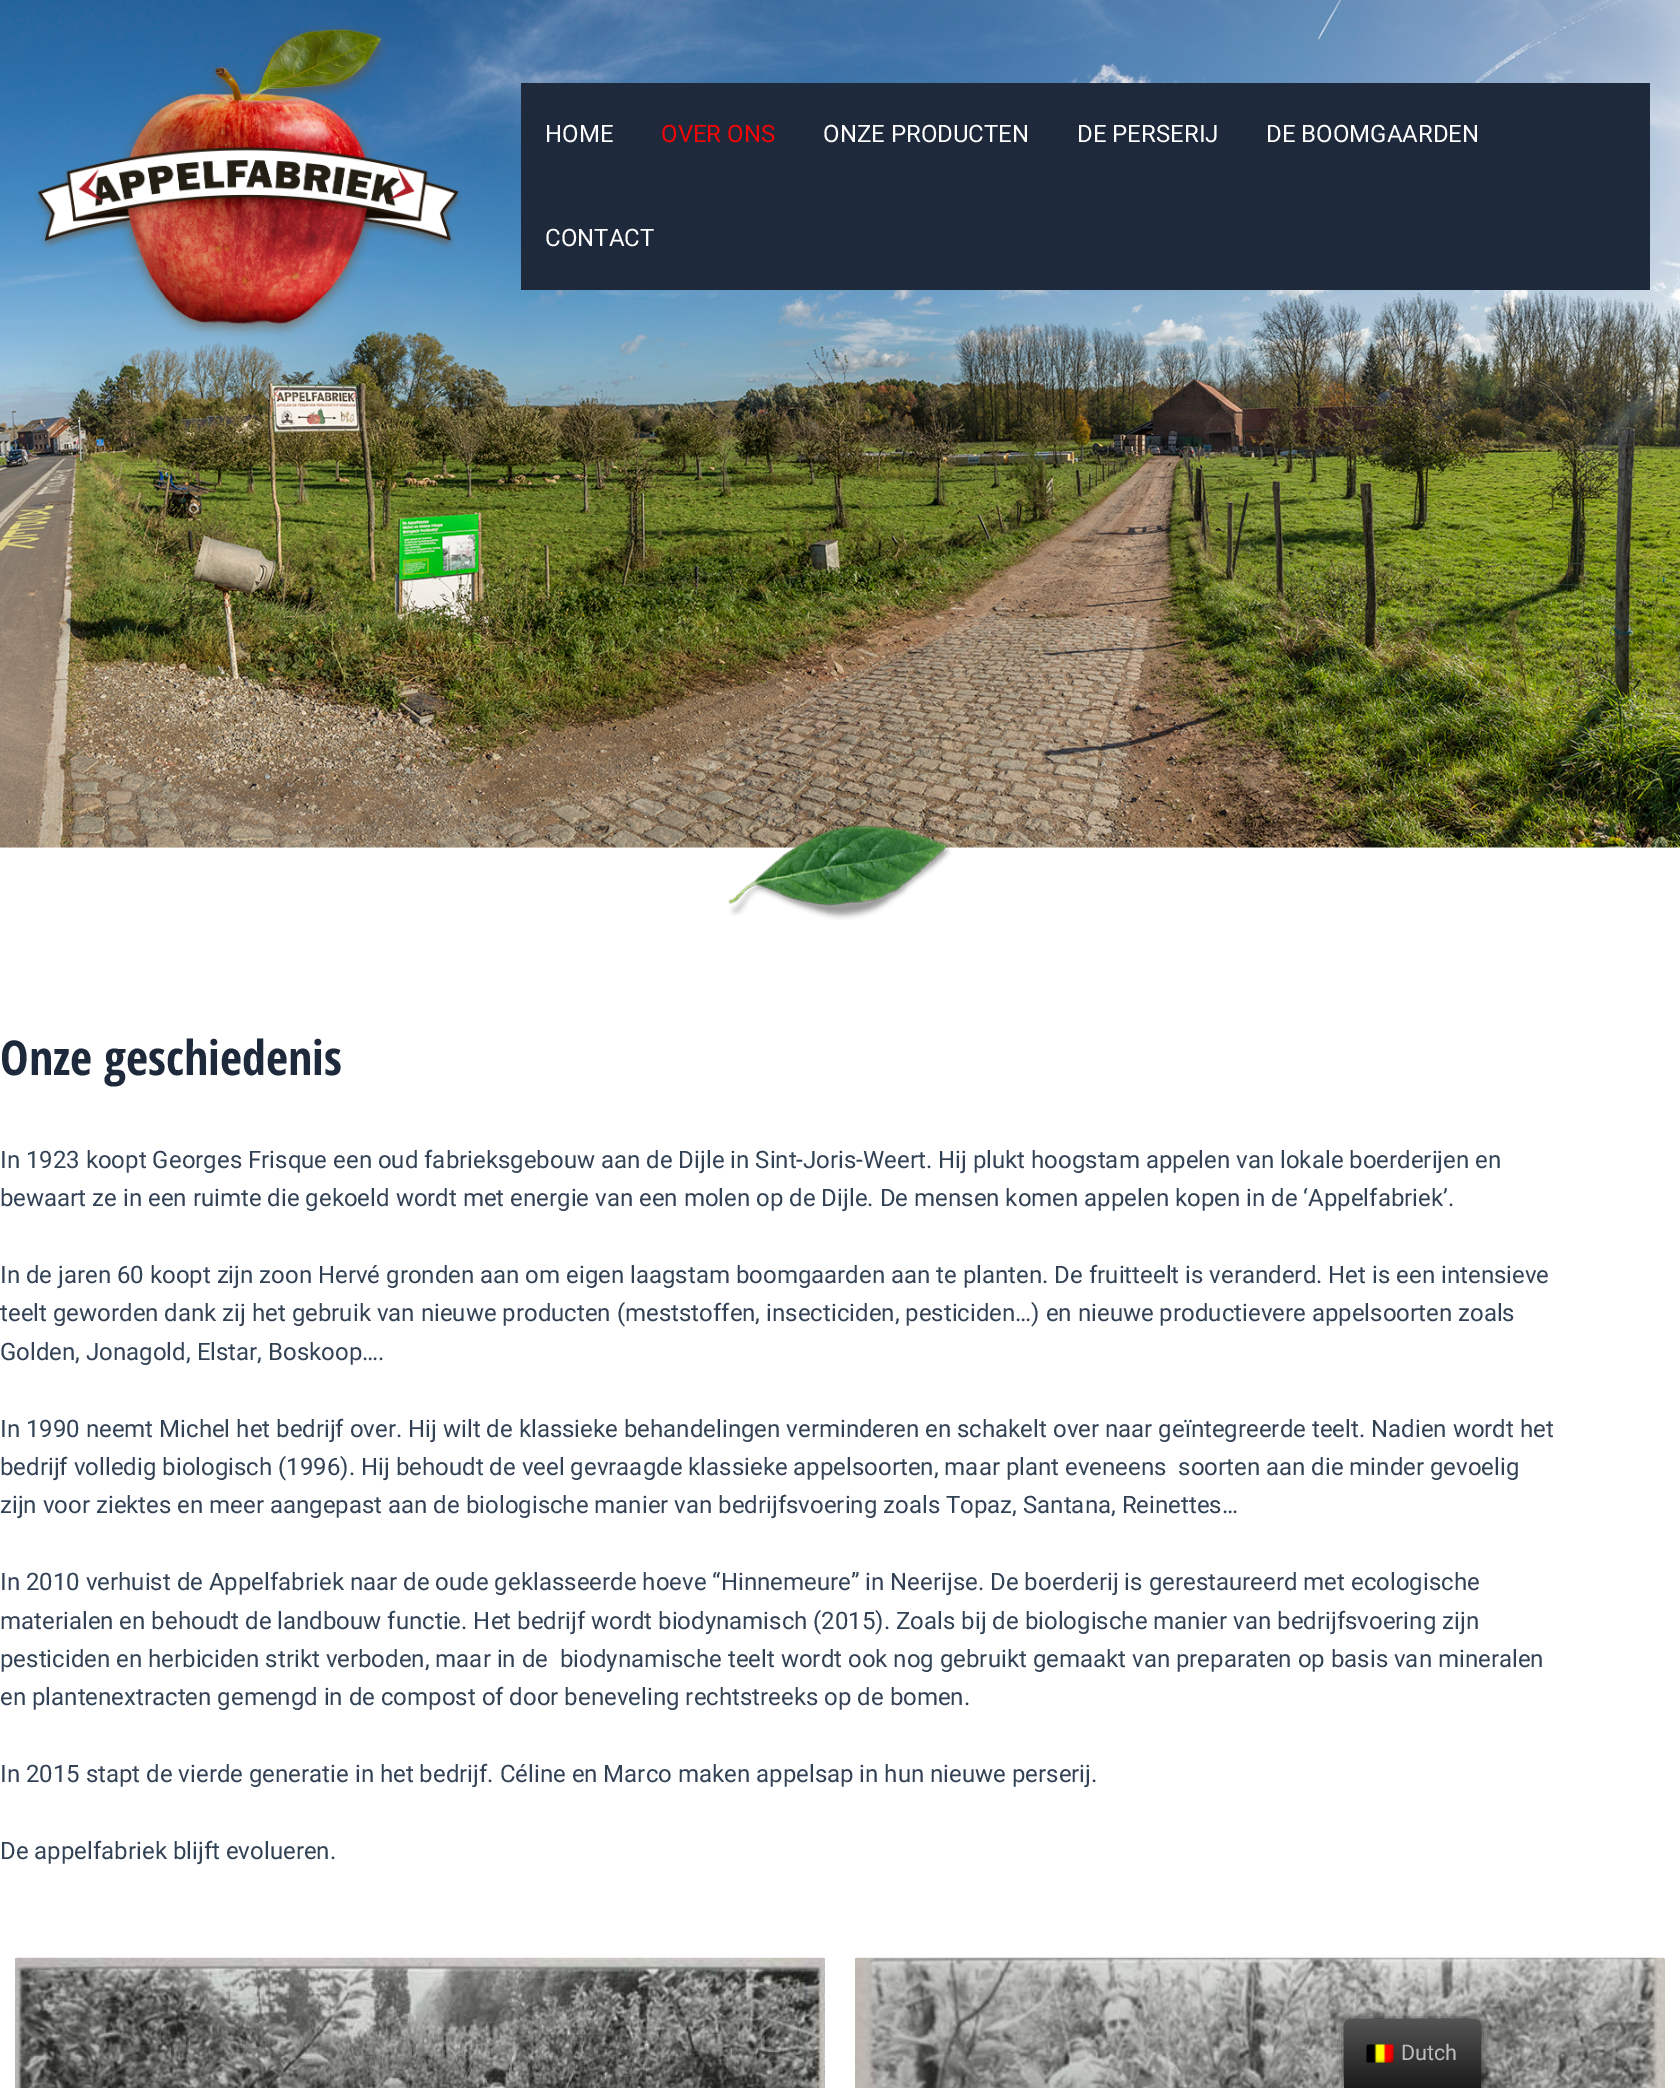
%!PS
<< /PageSize [1680 2088] /PageUsesTransparency true >> setpagedevice
/alpha { dup .setfillconstantalpha .setstrokeconstantalpha } def
/roundrect { 5 dict begin { /r /h /w /y /x } { exch def } forall
  x r add y moveto x w add y 2 copy h add r arct x w add y h add x 1 index r arct
  x y h add x y r arct x y 2 copy exch w add exch r arct closepath end } def
/shadow { 12 dict begin { /a /b /q /h /w /y /x } { exch def } forall gsave /was 0 def
  9 -2 -9 { dup b mul 4 div /e exch def 1 sub .425 mul 2.718 exch exp 1 add a .99 .min exch div /now exch def
    1 1 now sub 1 was sub div sub alpha /was now def
    w h .min e 2 mul add 0 gt { x e sub y e sub w e 2 mul add h e 2 mul add
      q e add b .6 mul add w h .min 2 div e add .min 0 .max roundrect fill } if } for grestore end } def
/picture { 5 dict begin { /h /w /y /x /name } { exch def } forall
  gsave x y translate w h scale
  w h 8 [w 0 0 h 0 0] name (r) file false 3 colorimage grestore end } def
0 .pushpdf14devicefilter
0 2088 translate 1 -1 scale
4 setmiterlimit
1 setgray
0 0 1680 2088 rectfill
0.973 0.965 0.953 setrgbcolor
0 847 1680 1 rectfill
(img2.rgb) 0 0 1680 848 picture
(img1.rgb) 34 25 428 312 picture
0.118 0.161 0.231 setrgbcolor
521 83 1129 207 rectfill
/Roboto-Regular [24 0 0 -24 0 0] selectfont
1 setgray
545 142 moveto (HOME) show
0.937 0.024 0.024 setrgbcolor
661 142 moveto (OVER ONS) show
1 setgray
823 142 moveto (ONZE PRODUCTEN) show
1077 142 moveto (DE PERSERIJ) show
1266 142 moveto (DE BOOMGAARDEN) show
545 246 moveto (CONTACT) show
(img3.rgb) 728 825 223 95 picture
/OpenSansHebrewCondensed-Bold [48 0 0 -48 0 0] selectfont
0.118 0.161 0.231 setrgbcolor
0 1075 moveto (Onze geschiedenis) show
/Roboto-Regular [24 0 0 -24 0 0] selectfont
0.2 0.255 0.333 setrgbcolor
0 1168 moveto (In 1923 koopt Georges Frisque een oud fabrieksgebouw aan de Dijle in Sint-Joris-Weert. Hij plukt hoogstam appelen van lokale boerderijen en) show
0 1206 moveto (bewaart ze in een ruimte die gekoeld wordt met energie van een molen op de Dijle. De mensen komen appelen kopen in de ‘Appelfabriek’.) show
0 1283 moveto (In de jaren 60 koopt zijn zoon Hervé gronden aan om eigen laagstam boomgaarden aan te planten. De fruitteelt is veranderd. Het is een intensieve) show
0 1321 moveto (teelt geworden dank zij het gebruik van nieuwe producten \(meststoffen, insecticiden, pesticiden…\) en nieuwe productievere appelsoorten zoals) show
0 1360 moveto (Golden, Jonagold, Elstar, Boskoop….) show
0 1437 moveto (In 1990 neemt Michel het bedrijf over. Hij wilt de klassieke behandelingen verminderen en schakelt over naar geïntegreerde teelt. Nadien wordt het) show
0 1475 moveto (bedrijf volledig biologisch \(1996\). Hij behoudt de veel gevraagde klassieke appelsoorten, maar plant eveneens  soorten aan die minder gevoelig) show
0 1513 moveto (zijn voor ziektes en meer aangepast aan de biologische manier van bedrijfsvoering zoals Topaz, Santana, Reinettes…) show
0 1590 moveto (In 2010 verhuist de Appelfabriek naar de oude geklasseerde hoeve “Hinnemeure” in Neerijse. De boerderij is gerestaureerd met ecologische) show
0 1629 moveto (materialen en behoudt de landbouw functie. Het bedrijf wordt biodynamisch \(2015\). Zoals bij de biologische manier van bedrijfsvoering zijn) show
0 1667 moveto (pesticiden en herbiciden strikt verboden, maar in de  biodynamische teelt wordt ook nog gebruikt gemaakt van preparaten op basis van mineralen) show
0 1705 moveto (en plantenextracten gemengd in de compost of door beneveling rechtstreeks op de bomen.) show
0 1782 moveto (In 2015 stapt de vierde generatie in het bedrijf. Céline en Marco maken appelsap in hun nieuwe perserij.) show
0 1859 moveto (De appelfabriek blijft evolueren.) show
(img4.rgb) 15 1957 810 131 picture
(img5.rgb) 855 1957 810 131 picture
0.129 setgray
1344 2019 137 69 8 4 1 shadow
gsave newpath 1352 2019 moveto 1473 2019 lineto 1477.5 2019 1481 2022.5 1481 2027 curveto 1481 2088 lineto 1344 2088 lineto 1344 2027 lineto 1344 2022.5 1347.5 2019 1352 2019 curveto closepath clip newpath
<< /ShadingType 2 /ColorSpace /DeviceRGB /Coords [1412 2088 1412 2019] /Extend [true true] /Function << /FunctionType 2 /Domain [0 1] /C0 [0.106 0.106 0.106] /C1 [0.329 0.329 0.329] /N 1 >> >> shfill grestore
(img6.rgb) 1366 2044 28 19 picture
/Roboto-Regular [21.5 0 0 -21.5 0 0] selectfont
0.741 setgray
1401 2060 moveto (Dutch) show
.poppdf14devicefilter showpage
